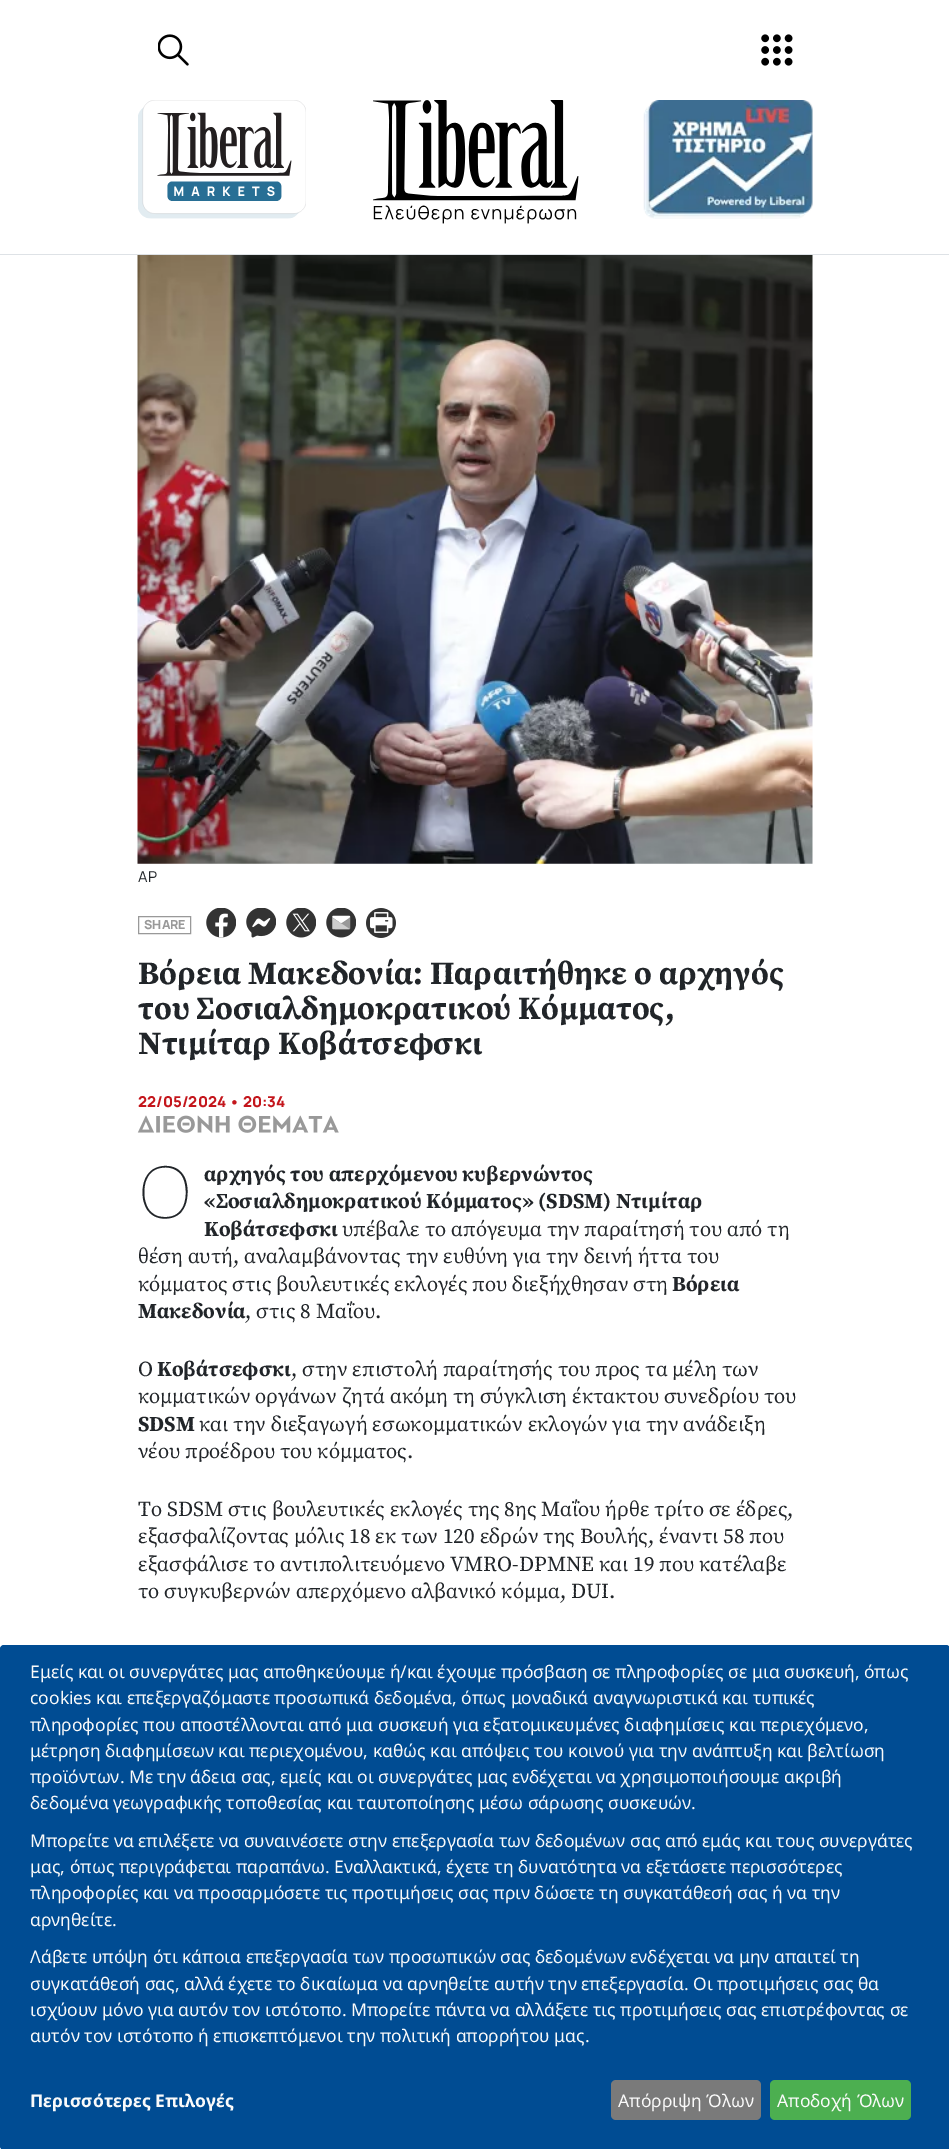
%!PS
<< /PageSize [949 2149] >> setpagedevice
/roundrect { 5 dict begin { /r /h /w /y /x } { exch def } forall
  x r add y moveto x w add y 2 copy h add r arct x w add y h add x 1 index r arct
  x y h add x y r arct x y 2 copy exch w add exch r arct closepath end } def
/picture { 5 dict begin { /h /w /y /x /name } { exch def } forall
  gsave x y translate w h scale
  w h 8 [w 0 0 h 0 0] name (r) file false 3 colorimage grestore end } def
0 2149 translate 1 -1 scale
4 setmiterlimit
1 setgray
0 0 949 2149 rectfill
(img1.rgb) 158 34 31 32 picture
(img2.rgb) 761 34 32 32 picture
(img3.rgb) 138 100 168 119 picture
(img4.rgb) 373 100 206 124 picture
(img5.rgb) 643 100 170 119 picture
0.871 0.886 0.902 setrgbcolor
0 254 949 1 rectfill
(img6.rgb) 137 255 676 609 picture
/Manrope-Regular [15 0 0 -15 0 0] selectfont
0.129 0.145 0.161 setrgbcolor
138 882 moveto (AP) show
0.6 setgray
138.5 916.5 52 17 rectstroke
/Manrope-ExtraBold [12.5 0 0 -12.5 0 0] selectfont
144 929 moveto (SHARE) show
(img7.rgb) 206 908 30 30 picture
(img8.rgb) 246 908 30 30 picture
(img9.rgb) 286 908 30 30 picture
(img10.rgb) 326 908 30 30 picture
(img11.rgb) 366 908 30 30 picture
/SourceSerifPro-Bold [32.5 0 0 -32.5 0 0] selectfont
0.129 0.145 0.161 setrgbcolor
138 984 moveto (Βόρεια Μακεδονία: Παραιτήθηκε ο αρχηγός) show
138 1019 moveto (του Σοσιαλδημοκρατικού Κόμματος,) show
138 1054 moveto (Ντιμίταρ Κοβάτσεφσκι) show
/Manrope-ExtraBold [15 0 0 -15 0 0] selectfont
0.769 0.086 0.11 setrgbcolor
138 1107 moveto (22/05/2024 • 20:34) show
(img12.rgb) 137 1115 202 18 picture
/NotoSans-Thin [72 0 0 -72 0 0] selectfont
0.129 0.145 0.161 setrgbcolor
138 1218 moveto (Ο) show
/SourceSerifPro-Bold [21.25 0 0 -21.25 0 0] selectfont
204 1181 moveto (αρχηγός του απερχόμενου κυβερνώντος) show
204 1208 moveto («Σοσιαλδημοκρατικού Κόμματος» \(SDSM\) Ντιμίταρ) show
204 1236 moveto (Κοβάτσεφσκι) show
/SourceSerifPro-Regular [21.25 0 0 -21.25 0 0] selectfont
342 1236 moveto (υπέβαλε το απόγευμα την παραίτησή του από τη) show
138 1263 moveto (θέση αυτή, αναλαμβάνοντας την ευθύνη για την δεινή ήττα του) show
138 1291 moveto (κόμματος στις βουλευτικές εκλογές που διεξήχθησαν στη) show
/SourceSerifPro-Bold [21.25 0 0 -21.25 0 0] selectfont
672 1291 moveto (Βόρεια) show
138 1318 moveto (Μακεδονία) show
/SourceSerifPro-Regular [21.25 0 0 -21.25 0 0] selectfont
245 1318 moveto (, στις 8 Μαΐου.) show
138 1376 moveto (Ο) show
/SourceSerifPro-Bold [21.25 0 0 -21.25 0 0] selectfont
157 1376 moveto (Κοβάτσεφσκι) show
/SourceSerifPro-Regular [21.25 0 0 -21.25 0 0] selectfont
291 1376 moveto (, στην επιστολή παραίτησής του προς τα μέλη των) show
138 1403 moveto (κομματικών οργάνων ζητά ακόμη τη σύγκλιση έκτακτου συνεδρίου του) show
/SourceSerifPro-Bold [21.25 0 0 -21.25 0 0] selectfont
138 1431 moveto (SDSM) show
/SourceSerifPro-Regular [21.25 0 0 -21.25 0 0] selectfont
199 1431 moveto (και την διεξαγωγή εσωκομματικών εκλογών για την ανάδειξη) show
138 1458 moveto (νέου προέδρου του κόμματος.) show
138 1516 moveto (Το SDSM στις βουλευτικές εκλογές της 8ης Μαΐου ήρθε τρίτο σε έδρες,) show
138 1543 moveto (εξασφαλίζοντας μόλις 18 εκ των 120 εδρών της Βουλής, έναντι 58 που) show
138 1571 moveto (εξασφάλισε το αντιπολιτευόμενο VMRO-DPMNE και 19 που κατέλαβε) show
138 1598 moveto (το συγκυβερνών απερχόμενο αλβανικό κόμμα, DUI.) show
0 0.298 0.576 setrgbcolor
0 1645 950 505 4 roundrect fill
/NotoSans-Regular [17.5 0 0 -17.5 0 0] selectfont
0.98 setgray
30 1678 moveto (Εμείς και οι συνεργάτες μας αποθηκεύουμε ή/και έχουμε πρόσβαση σε πληροφορίες σε μια συσκευή, όπως) show
30 1704 moveto (cookies και επεξεργαζόμαστε προσωπικά δεδομένα, όπως μοναδικά αναγνωριστικά και τυπικές) show
30 1731 moveto (πληροφορίες που αποστέλλονται από μια συσκευή για εξατομικευμένες διαφημίσεις και περιεχόμενο,) show
30 1757 moveto (μέτρηση διαφημίσεων και περιεχομένου, καθώς και απόψεις του κοινού για την ανάπτυξη και βελτίωση) show
30 1783 moveto (προϊόντων. Με την άδεια σας, εμείς και οι συνεργάτες μας ενδέχεται να χρησιμοποιήσουμε ακριβή) show
30 1809 moveto (δεδομένα γεωγραφικής τοποθεσίας και ταυτοποίησης μέσω σάρωσης συσκευών.) show
30 1847 moveto (Μπορείτε να επιλέξετε να συναινέσετε στην επεξεργασία των δεδομένων σας από εμάς και τους συνεργάτες) show
30 1873 moveto (μας, όπως περιγράφεται παραπάνω. Εναλλακτικά, έχετε τη δυνατότητα να εξετάσετε περισσότερες) show
30 1899 moveto (πληροφορίες και να προσαρμόσετε τις προτιμήσεις σας πριν δώσετε τη συγκατάθεσή σας ή να την) show
30 1926 moveto (αρνηθείτε.) show
30 1963 moveto (Λάβετε υπόψη ότι κάποια επεξεργασία των προσωπικών σας δεδομένων ενδέχεται να μην απαιτεί τη) show
30 1990 moveto (συγκατάθεσή σας, αλλά έχετε το δικαίωμα να αρνηθείτε αυτήν την επεξεργασία. Οι προτιμήσεις σας θα) show
30 2016 moveto (ισχύουν μόνο για αυτόν τον ιστότοπο. Μπορείτε πάντα να αλλάξετε τις προτιμήσεις σας επιστρέφοντας σε) show
30 2042 moveto (αυτόν τον ιστότοπο ή επισκεπτόμενοι την πολιτική απορρήτου μας.) show
/NotoSans-Bold [17.5 0 0 -17.5 0 0] selectfont
30 2107 moveto (Περισσότερες Επιλογές) show
0.478 setgray
611 2080 150 40 5 roundrect fill
/NotoSans-Regular [17.5 0 0 -17.5 0 0] selectfont
0.98 setgray
618 2107 moveto (Απόρριψη Όλων) show
0.298 0.686 0.314 setrgbcolor
770 2080 141 40 5 roundrect fill
0.98 setgray
777 2107 moveto (Αποδοχή Όλων) show
showpage
